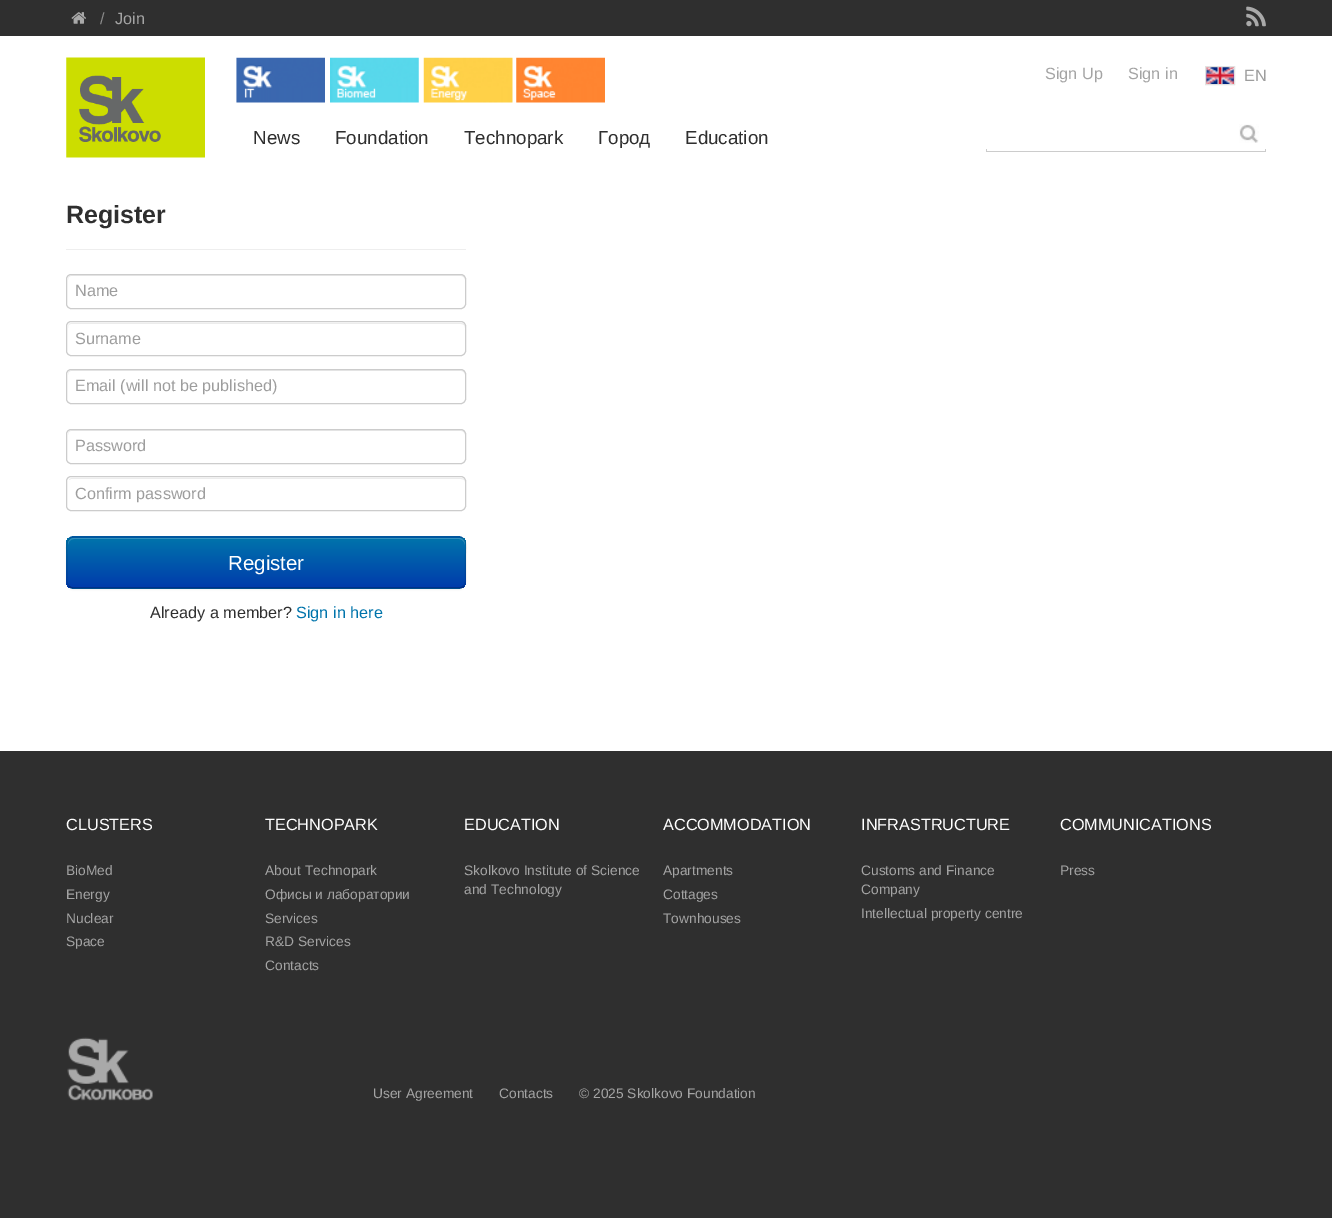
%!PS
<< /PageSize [1332 1218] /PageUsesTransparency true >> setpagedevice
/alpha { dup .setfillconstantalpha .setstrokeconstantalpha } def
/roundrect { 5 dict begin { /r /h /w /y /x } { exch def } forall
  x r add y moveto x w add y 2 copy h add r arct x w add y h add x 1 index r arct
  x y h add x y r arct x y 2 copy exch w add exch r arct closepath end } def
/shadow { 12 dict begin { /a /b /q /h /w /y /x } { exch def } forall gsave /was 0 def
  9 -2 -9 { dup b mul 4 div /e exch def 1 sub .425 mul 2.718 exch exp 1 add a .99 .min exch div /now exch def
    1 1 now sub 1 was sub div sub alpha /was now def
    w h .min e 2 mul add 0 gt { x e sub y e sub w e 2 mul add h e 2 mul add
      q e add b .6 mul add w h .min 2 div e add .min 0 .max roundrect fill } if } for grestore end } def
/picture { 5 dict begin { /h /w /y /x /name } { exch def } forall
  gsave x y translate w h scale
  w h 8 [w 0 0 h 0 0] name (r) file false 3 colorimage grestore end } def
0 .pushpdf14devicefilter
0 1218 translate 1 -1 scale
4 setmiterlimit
1 setgray
0 0 1332 1218 rectfill
0.184 setgray
0 0 1332 36 rectfill
(img1.rgb) 71 12 15 12 picture
/LiberationSans-Regular [16.25 0 0 -16.25 0 0] selectfont
0.541 setgray
100 24 moveto (/) show
0.643 setgray
115 24 moveto (Join) show
(img2.rgb) 1246 6 20 21 picture
(img3.rgb) 66 57 139 101 picture
(img4.rgb) 236 57 89 46 picture
(img5.rgb) 330 57 89 46 picture
(img6.rgb) 423 57 90 46 picture
(img7.rgb) 516 57 89 46 picture
1045 79 moveto (Sign Up) show
1128 79 moveto (Sign in) show
(img8.rgb) 1206 67 28 17 picture
0.882 0.886 0.882 setrgbcolor
1205.5 66.5 29 18 rectstroke
0.616 setgray
1244 81 moveto (EN) show
/LiberationSans-Regular [18.75 0 0 -18.75 0 0] selectfont
0.184 setgray
253 144 moveto (News) show
335 144 moveto (Foundation) show
464 144 moveto (Technopark) show
598 144 moveto (Город) show
685 144 moveto (Education) show
(img9.rgb) 1239 124 20 19 picture
0.8 setgray
986 151 280 1 rectfill
986 149 1 3 rectfill
1265 149 1 3 rectfill
/LiberationSans-Bold [25 0 0 -25 0 0] selectfont
0.184 setgray
66 223 moveto (Register) show
0.933 setgray
66 249 400 1 rectfill
0.925 setgray
newpath 71 276 moveto 461 276 lineto 463 276 465 278 465 280 curveto 465 277 464 275 461 275 curveto 72 275 lineto 69 275 68 277 68 280 curveto 68 278 69 276 71 276 curveto closepath fill
0.8 setgray
66.5 274.5 399 34 4.5 roundrect stroke
/LiberationSans-Regular [16.25 0 0 -16.25 0 0] selectfont
0.616 setgray
75 296 moveto (Name) show
0.925 setgray
newpath 71 324 moveto 461 324 lineto 463 324 465 325 465 328 curveto 465 325 464 323 461 323 curveto 72 323 lineto 69 323 68 325 68 328 curveto 68 325 69 324 71 324 curveto closepath fill
0.8 setgray
66.5 321.5 399 34 4.5 roundrect stroke
0.616 setgray
75 344 moveto (Surname) show
0.925 setgray
newpath 71 371 moveto 461 371 lineto 463 371 465 373 465 375 curveto 465 372 464 370 461 370 curveto 72 370 lineto 69 370 68 372 68 375 curveto 68 373 69 371 71 371 curveto closepath fill
0.8 setgray
66.5 369.5 399 34 4.5 roundrect stroke
0.616 setgray
75 391 moveto (Email \(will not be published\)) show
0.925 setgray
newpath 71 431 moveto 461 431 lineto 463 431 465 433 465 435 curveto 465 432 464 430 461 430 curveto 72 430 lineto 69 430 68 432 68 435 curveto 68 433 69 431 71 431 curveto closepath fill
0.8 setgray
66.5 429.5 399 34 4.5 roundrect stroke
0.616 setgray
75 451 moveto (Password) show
0.925 setgray
newpath 71 479 moveto 461 479 lineto 463 479 465 480 465 482 curveto 465 480 463 478 461 478 curveto 72 478 lineto 71 478 69 479 69 480 curveto closepath fill
0.8 setgray
66.5 476.5 399 34 4.5 roundrect stroke
0.616 setgray
75 499 moveto (Confirm password) show
0 setgray
66 538 400 52 8 1 0.05 shadow
0 0.365 0.671 setrgbcolor
66 536 400 53 8 roundrect fill
gsave
66 536 400 53 8 roundrect clip newpath
gsave newpath 66 538 moveto 466 538 lineto 466 588 lineto 66 588 lineto closepath clip newpath
<< /ShadingType 2 /ColorSpace /DeviceRGB /Coords [266 538 266 588] /Extend [true true] /Function << /FunctionType 2 /Domain [0 1] /C0 [0 0.455 0.671] /C1 [0 0.231 0.671] /N 1 >> >> shfill grestore
grestore
0.2 0.561 0.737 setrgbcolor
newpath 74 539 moveto 459 539 lineto 462 539 465 542 465 545 curveto 465 544 lineto 465 541 462 538 459 538 curveto 74 538 lineto 71 538 68 541 68 544 curveto 68 545 lineto 68 542 70 539 74 539 curveto closepath fill
0.25 alpha
0 setgray
1.2 setlinewidth
newpath 463.5 586 moveto 462.5 587.5 460.5 588 459 588 curveto 74 588 lineto 72 588 70 587.5 69 586 curveto stroke
0.1 alpha
newpath 69 586 moveto 66 583 67 578.5 67 575 curveto 67 556 lineto 67 551 64 537 74 537 curveto 459 537 lineto 468.5 537 465.5 551 465.5 556 curveto 465.5 575 lineto 465.5 578.5 466.5 583 463.5 586 curveto stroke
/LiberationSans-Regular [20.5 0 0 -20.5 0 0] selectfont
1 alpha
1 setgray
228 570 moveto (Register) show
/LiberationSans-Regular [16.25 0 0 -16.25 0 0] selectfont
0.184 setgray
150 618 moveto (Already a member?) show
0 0.455 0.671 setrgbcolor
296 618 moveto (Sign in here) show
0.184 setgray
0 751 1332 467 rectfill
1 setgray
66 830 moveto (CLUSTERS) show
/LiberationSans-Regular [13.75 0 0 -13.75 0 0] selectfont
0.643 setgray
66 875 moveto (BioMed) show
66 899 moveto (Energy) show
66 923 moveto (Nuclear) show
66 946 moveto (Space) show
/LiberationSans-Regular [16.25 0 0 -16.25 0 0] selectfont
1 setgray
265 830 moveto (TECHNOPARK) show
/LiberationSans-Regular [13.75 0 0 -13.75 0 0] selectfont
0.643 setgray
265 875 moveto (About Technopark) show
265 899 moveto (Офисы и лаборатории) show
265 923 moveto (Services) show
265 946 moveto (R&D Services) show
265 970 moveto (Contacts) show
/LiberationSans-Regular [16.25 0 0 -16.25 0 0] selectfont
1 setgray
464 830 moveto (EDUCATION) show
/LiberationSans-Regular [13.75 0 0 -13.75 0 0] selectfont
0.643 setgray
464 875 moveto (Skolkovo Institute of Science) show
464 894 moveto (and Technology) show
/LiberationSans-Regular [16.25 0 0 -16.25 0 0] selectfont
1 setgray
663 830 moveto (ACCOMMODATION) show
/LiberationSans-Regular [13.75 0 0 -13.75 0 0] selectfont
0.643 setgray
663 875 moveto (Apartments) show
663 899 moveto (Cottages) show
663 923 moveto (Townhouses) show
/LiberationSans-Regular [16.25 0 0 -16.25 0 0] selectfont
1 setgray
861 830 moveto (INFRASTRUCTURE) show
/LiberationSans-Regular [13.75 0 0 -13.75 0 0] selectfont
0.643 setgray
861 875 moveto (Customs and Finance) show
861 894 moveto (Company) show
861 918 moveto (Intellectual property centre) show
/LiberationSans-Regular [16.25 0 0 -16.25 0 0] selectfont
1 setgray
1060 830 moveto (COMMUNICATIONS) show
/LiberationSans-Regular [13.75 0 0 -13.75 0 0] selectfont
0.643 setgray
1060 875 moveto (Press) show
(img10.rgb) 67 1037 86 64 picture
373 1098 moveto (User Agreement) show
499 1098 moveto (Contacts) show
579 1098 moveto (© 2025 Skolkovo Foundation) show
.poppdf14devicefilter showpage
